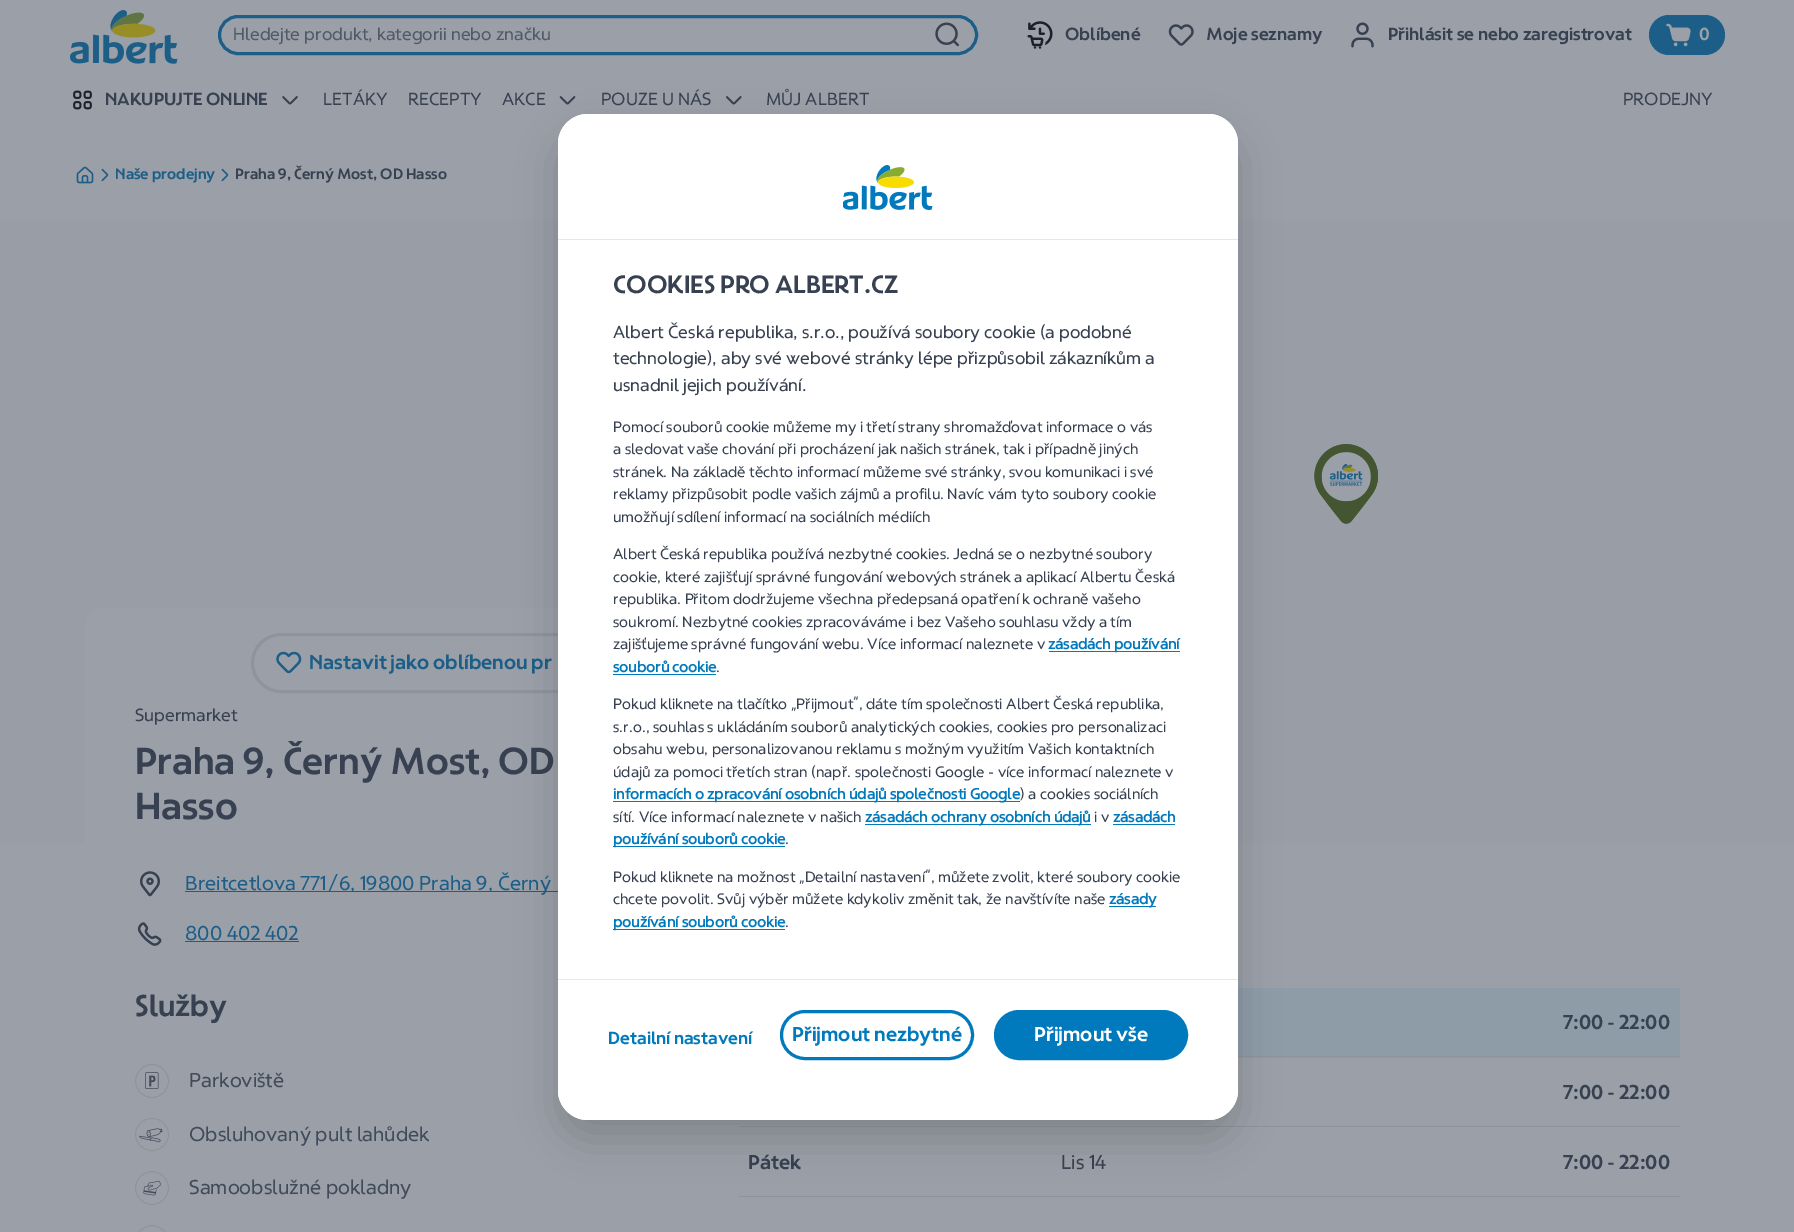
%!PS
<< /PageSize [1794 1232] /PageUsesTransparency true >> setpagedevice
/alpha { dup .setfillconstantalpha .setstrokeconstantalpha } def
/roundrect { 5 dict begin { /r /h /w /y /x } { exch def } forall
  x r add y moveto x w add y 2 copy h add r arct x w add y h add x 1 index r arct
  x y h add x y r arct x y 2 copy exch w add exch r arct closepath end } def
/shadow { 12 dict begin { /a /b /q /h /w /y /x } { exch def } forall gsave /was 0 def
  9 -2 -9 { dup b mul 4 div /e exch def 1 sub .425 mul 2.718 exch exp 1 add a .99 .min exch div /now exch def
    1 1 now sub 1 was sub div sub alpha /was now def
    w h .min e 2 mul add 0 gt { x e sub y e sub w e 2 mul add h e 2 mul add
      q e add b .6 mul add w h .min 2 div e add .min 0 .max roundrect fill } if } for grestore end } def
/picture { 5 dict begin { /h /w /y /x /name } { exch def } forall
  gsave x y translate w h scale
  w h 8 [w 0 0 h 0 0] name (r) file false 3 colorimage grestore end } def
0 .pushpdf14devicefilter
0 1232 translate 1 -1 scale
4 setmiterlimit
0.608 0.627 0.659 setrgbcolor
0 0 1794 1232 rectfill
(img1.rgb) 70 10 108 54 picture
0.11 0.369 0.529 setrgbcolor
3 setlinewidth
219.5 16.5 757 37 18.5 roundrect stroke
/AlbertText-Regular [17.5 0 0 -17.5 0 0] selectfont
0.318 0.353 0.412 setrgbcolor
233 40 moveto (Hledejte produkt, kategorii nebo značku) show
(img2.rgb) 935 22 24 25 picture
(img3.rgb) 1027 21 26 28 picture
/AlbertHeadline-Bold [17.5 0 0 -17.5 0 0] selectfont
0.216 0.255 0.318 setrgbcolor
1065 40 moveto (Oblíbené) show
(img4.rgb) 1168 24 26 22 picture
1206 40 moveto (Moje seznamy) show
(img5.rgb) 1351 22 23 26 picture
1388 40 moveto (Přihlásit se nebo zaregistrovat) show
0.11 0.369 0.529 setrgbcolor
1649 15 76 40 20 roundrect fill
(img6.rgb) 1666 23 25 24 picture
0.608 0.627 0.659 setrgbcolor
1699 40 moveto (0) show
(img7.rgb) 73 90 19 20 picture
0.216 0.255 0.318 setrgbcolor
105 105 moveto (NAKUPUJTE ONLINE) show
(img8.rgb) 282 96 16 9 picture
/AlbertText-Regular [17.5 0 0 -17.5 0 0] selectfont
323 105 moveto (LETÁKY) show
408 105 moveto (RECEPTY) show
502 105 moveto (AKCE) show
(img9.rgb) 559 96 17 9 picture
601 105 moveto (POUZE U NÁS) show
(img10.rgb) 726 96 16 9 picture
766 105 moveto (MŮJ ALBERT) show
1623 105 moveto (PRODEJNY) show
(img11.rgb) 76 166 18 18 picture
(img12.rgb) 101 168 8 14 picture
/AlbertHeadline-Bold [15 0 0 -15 0 0] selectfont
0.11 0.369 0.529 setrgbcolor
115 179 moveto (Naše prodejny) show
(img12.rgb) 221 168 8 14 picture
0.216 0.255 0.318 setrgbcolor
235 179 moveto (Praha 9, Černý Most, OD Hasso) show
0.596 0.616 0.651 setrgbcolor
0 220 1794 623 rectfill
(img13.rgb) 1314 444 65 80 picture
0.608 0.627 0.659 setrgbcolor
85 608 604 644 20 roundrect fill
0.557 0.58 0.62 setrgbcolor
252.5 634.5 385 57 28.5 roundrect stroke
(img14.rgb) 276 651 26 23 picture
/AlbertHeadline-Bold [20 0 0 -20 0 0] selectfont
0.11 0.369 0.529 setrgbcolor
309 669 moveto (Nastavit jako oblíbenou pr) show
/AlbertText-Regular [17.5 0 0 -17.5 0 0] selectfont
0.216 0.255 0.318 setrgbcolor
135 721 moveto (Supermarket) show
/AlbertHeadline-Bold [37.5 0 0 -37.5 0 0] selectfont
135 774 moveto (Praha 9, Černý Most, OD) show
135 819 moveto (Hasso) show
(img15.rgb) 140 871 20 26 picture
0.11 0.369 0.529 setrgbcolor
185 891 373 1 rectfill
/AlbertText-Regular [20 0 0 -20 0 0] selectfont
185 890 moveto (Breitcetlova 771/6, 19800 Praha 9, Černý) show
(img16.rgb) 137 922 25 24 picture
185 940 moveto (800 402 402) show
185 941 114 1 rectfill
/AlbertHeadline-Bold [30 0 0 -30 0 0] selectfont
0.216 0.255 0.318 setrgbcolor
135 1016 moveto (Služby) show
0.557 0.58 0.62 setrgbcolor
1 setlinewidth
newpath 152 1081 16.5 0 360 arc closepath stroke
(img17.rgb) 145 1072 14 17 picture
/AlbertText-Regular [20 0 0 -20 0 0] selectfont
0.255 0.294 0.353 setrgbcolor
189 1087 moveto (Parkoviště) show
0.557 0.58 0.62 setrgbcolor
135.5 1118.5 33 32 16 roundrect stroke
(img18.rgb) 139 1128 24 15 picture
0.255 0.294 0.353 setrgbcolor
189 1141 moveto (Obsluhovaný pult lahůdek) show
0.557 0.58 0.62 setrgbcolor
newpath 152 1188 16.5 0 360 arc closepath stroke
(img19.rgb) 143 1180 18 16 picture
0.255 0.294 0.353 setrgbcolor
189 1194 moveto (Samoobslužné pokladny) show
0.557 0.58 0.62 setrgbcolor
135.5 1225.5 33 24 16.5 roundrect stroke
0.557 0.612 0.659 setrgbcolor
1238 988 442 70 rectfill
0.557 0.58 0.62 setrgbcolor
1238 1056 442 1 rectfill
/AlbertHeadline-Bold [20 0 0 -20 0 0] selectfont
0.216 0.255 0.318 setrgbcolor
1563 1029 moveto (7:00 - 22:00) show
0.557 0.58 0.62 setrgbcolor
739 1126 941 1 rectfill
0.216 0.255 0.318 setrgbcolor
1563 1099 moveto (7:00 - 22:00) show
0.557 0.58 0.62 setrgbcolor
739 1196 941 1 rectfill
0.216 0.255 0.318 setrgbcolor
748 1169 moveto (Pátek) show
/AlbertText-Regular [20 0 0 -20 0 0] selectfont
1061 1169 moveto (Lis 14) show
/AlbertHeadline-Bold [20 0 0 -20 0 0] selectfont
1563 1169 moveto (7:00 - 22:00) show
0 setgray
558 134 680 1006 30 20 0.16 shadow
1 setgray
558 114 680 1006 30 roundrect fill
newpath 588 114 moveto 1208 114 lineto 1224.5 114 1238 127.5 1238 144 curveto 1238 240 lineto 558 240 lineto 558 144 lineto 558 127.5 571.5 114 588 114 curveto closepath fill
0.898 0.906 0.922 setrgbcolor
558 239 680 1 rectfill
(img20.rgb) 843 165 90 45 picture
/AlbertHeadline-Bold [25 0 0 -25 0 0] selectfont
0.216 0.255 0.318 setrgbcolor
613 293 moveto (COOKIES PRO ALBERT.CZ) show
/AlbertText-Regular [17.5 0 0 -17.5 0 0] selectfont
613 338 moveto (Albert Česká republika, s.r.o., používá soubory cookie \(a podobné) show
613 364 moveto (technologie\), aby své webové stránky lépe přizpůsobil zákazníkům a) show
613 391 moveto (usnadnil jejich používání.) show
/AlbertText-Regular [15 0 0 -15 0 0] selectfont
613 432 moveto (Pomocí souborů cookie můžeme my i třetí strany shromažďovat informace o vás) show
613 454 moveto (a sledovat vaše chování při procházení jak našich stránek, tak i případně jiných) show
613 477 moveto (stránek. Na základě těchto informací můžeme své stránky, svou komunikaci i své) show
613 499 moveto (reklamy přizpůsobit podle vašich zájmů a profilu. Navíc vám tyto soubory cookie) show
613 522 moveto (umožňují sdílení informací na sociálních médiích) show
613 559 moveto (Albert Česká republika používá nezbytné cookies. Jedná se o nezbytné soubory) show
613 582 moveto (cookie, které zajišťují správné fungování webových stránek a aplikací Albertu Česká) show
613 604 moveto (republika. Přitom dodržujeme všechna předepsaná opatření k ochraně vašeho) show
613 627 moveto (soukromí. Nezbytné cookies zpracováváme i bez Vašeho souhlasu vždy a tím) show
613 649 moveto (zajišťujeme správné fungování webu. Více informací naleznete v) show
0 0.478 0.737 setrgbcolor
1049 651 131 1 rectfill
/AlbertText-Bold [15 0 0 -15 0 0] selectfont
1048 649 moveto (zásadách používání) show
613 672 moveto (souborů cookie) show
613 674 103 1 rectfill
/AlbertText-Regular [15 0 0 -15 0 0] selectfont
0.216 0.255 0.318 setrgbcolor
716 672 moveto (.) show
613 709 moveto (Pokud kliknete na tlačítko „Přijmout“, dáte tím společnosti Albert Česká republika,) show
613 732 moveto (s.r.o., souhlas s ukládáním souborů analytických cookies, cookies pro personalizaci) show
613 754 moveto (obsahu webu, personalizovanou reklamu s možným využitím Vašich kontaktních) show
613 777 moveto (údajů za pomoci třetích stran \(např. společnosti Google - více informací naleznete v) show
0 0.478 0.737 setrgbcolor
613 801 407 1 rectfill
/AlbertText-Bold [15 0 0 -15 0 0] selectfont
613 799 moveto (informacích o zpracování osobních údajů společnosti Google) show
/AlbertText-Regular [15 0 0 -15 0 0] selectfont
0.216 0.255 0.318 setrgbcolor
1020 799 moveto (\) a cookies sociálních) show
613 822 moveto (sítí. Více informací naleznete v našich) show
0 0.478 0.737 setrgbcolor
865 824 226 1 rectfill
/AlbertText-Bold [15 0 0 -15 0 0] selectfont
865 822 moveto (zásadách ochrany osobních údajů) show
/AlbertText-Regular [15 0 0 -15 0 0] selectfont
0.216 0.255 0.318 setrgbcolor
1094 822 moveto (i v) show
/AlbertText-Bold [15 0 0 -15 0 0] selectfont
0 0.478 0.737 setrgbcolor
1113 822 moveto (zásadách) show
1113 824 62 1 rectfill
613 846 172 1 rectfill
613 844 moveto (používání souborů cookie) show
/AlbertText-Regular [15 0 0 -15 0 0] selectfont
0.216 0.255 0.318 setrgbcolor
785 844 moveto (.) show
613 882 moveto (Pokud kliknete na možnost „Detailní nastavení“, můžete zvolit, které soubory cookie) show
613 904 moveto (chcete povolit. Svůj výběr můžete kdykoliv změnit tak, že navštívíte naše) show
0 0.478 0.737 setrgbcolor
1109 906 47 1 rectfill
/AlbertText-Bold [15 0 0 -15 0 0] selectfont
1109 904 moveto (zásady) show
613 929 172 1 rectfill
613 927 moveto (používání souborů cookie) show
/AlbertText-Regular [15 0 0 -15 0 0] selectfont
0.216 0.255 0.318 setrgbcolor
785 927 moveto (.) show
1 setgray
newpath 558 979 moveto 1238 979 lineto 1238 1090 lineto 1238 1106.5 1224.5 1120 1208 1120 curveto 588 1120 lineto 571.5 1120 558 1106.5 558 1090 curveto closepath fill
0.898 0.906 0.922 setrgbcolor
558 979 680 1 rectfill
/AlbertHeadline-Bold [17.5 0 0 -17.5 0 0] selectfont
0 0.478 0.737 setrgbcolor
608 1044 moveto (Detailní nastavení) show
3 setlinewidth
781.5 1011.5 191 47 23.5 roundrect stroke
/AlbertHeadline-Bold [20 0 0 -20 0 0] selectfont
792 1041 moveto (Přijmout nezbytné) show
995.5 1011.5 191 47 23.5 roundrect gsave fill grestore
stroke
1 setgray
1034 1041 moveto (Přijmout vše) show
.poppdf14devicefilter showpage
